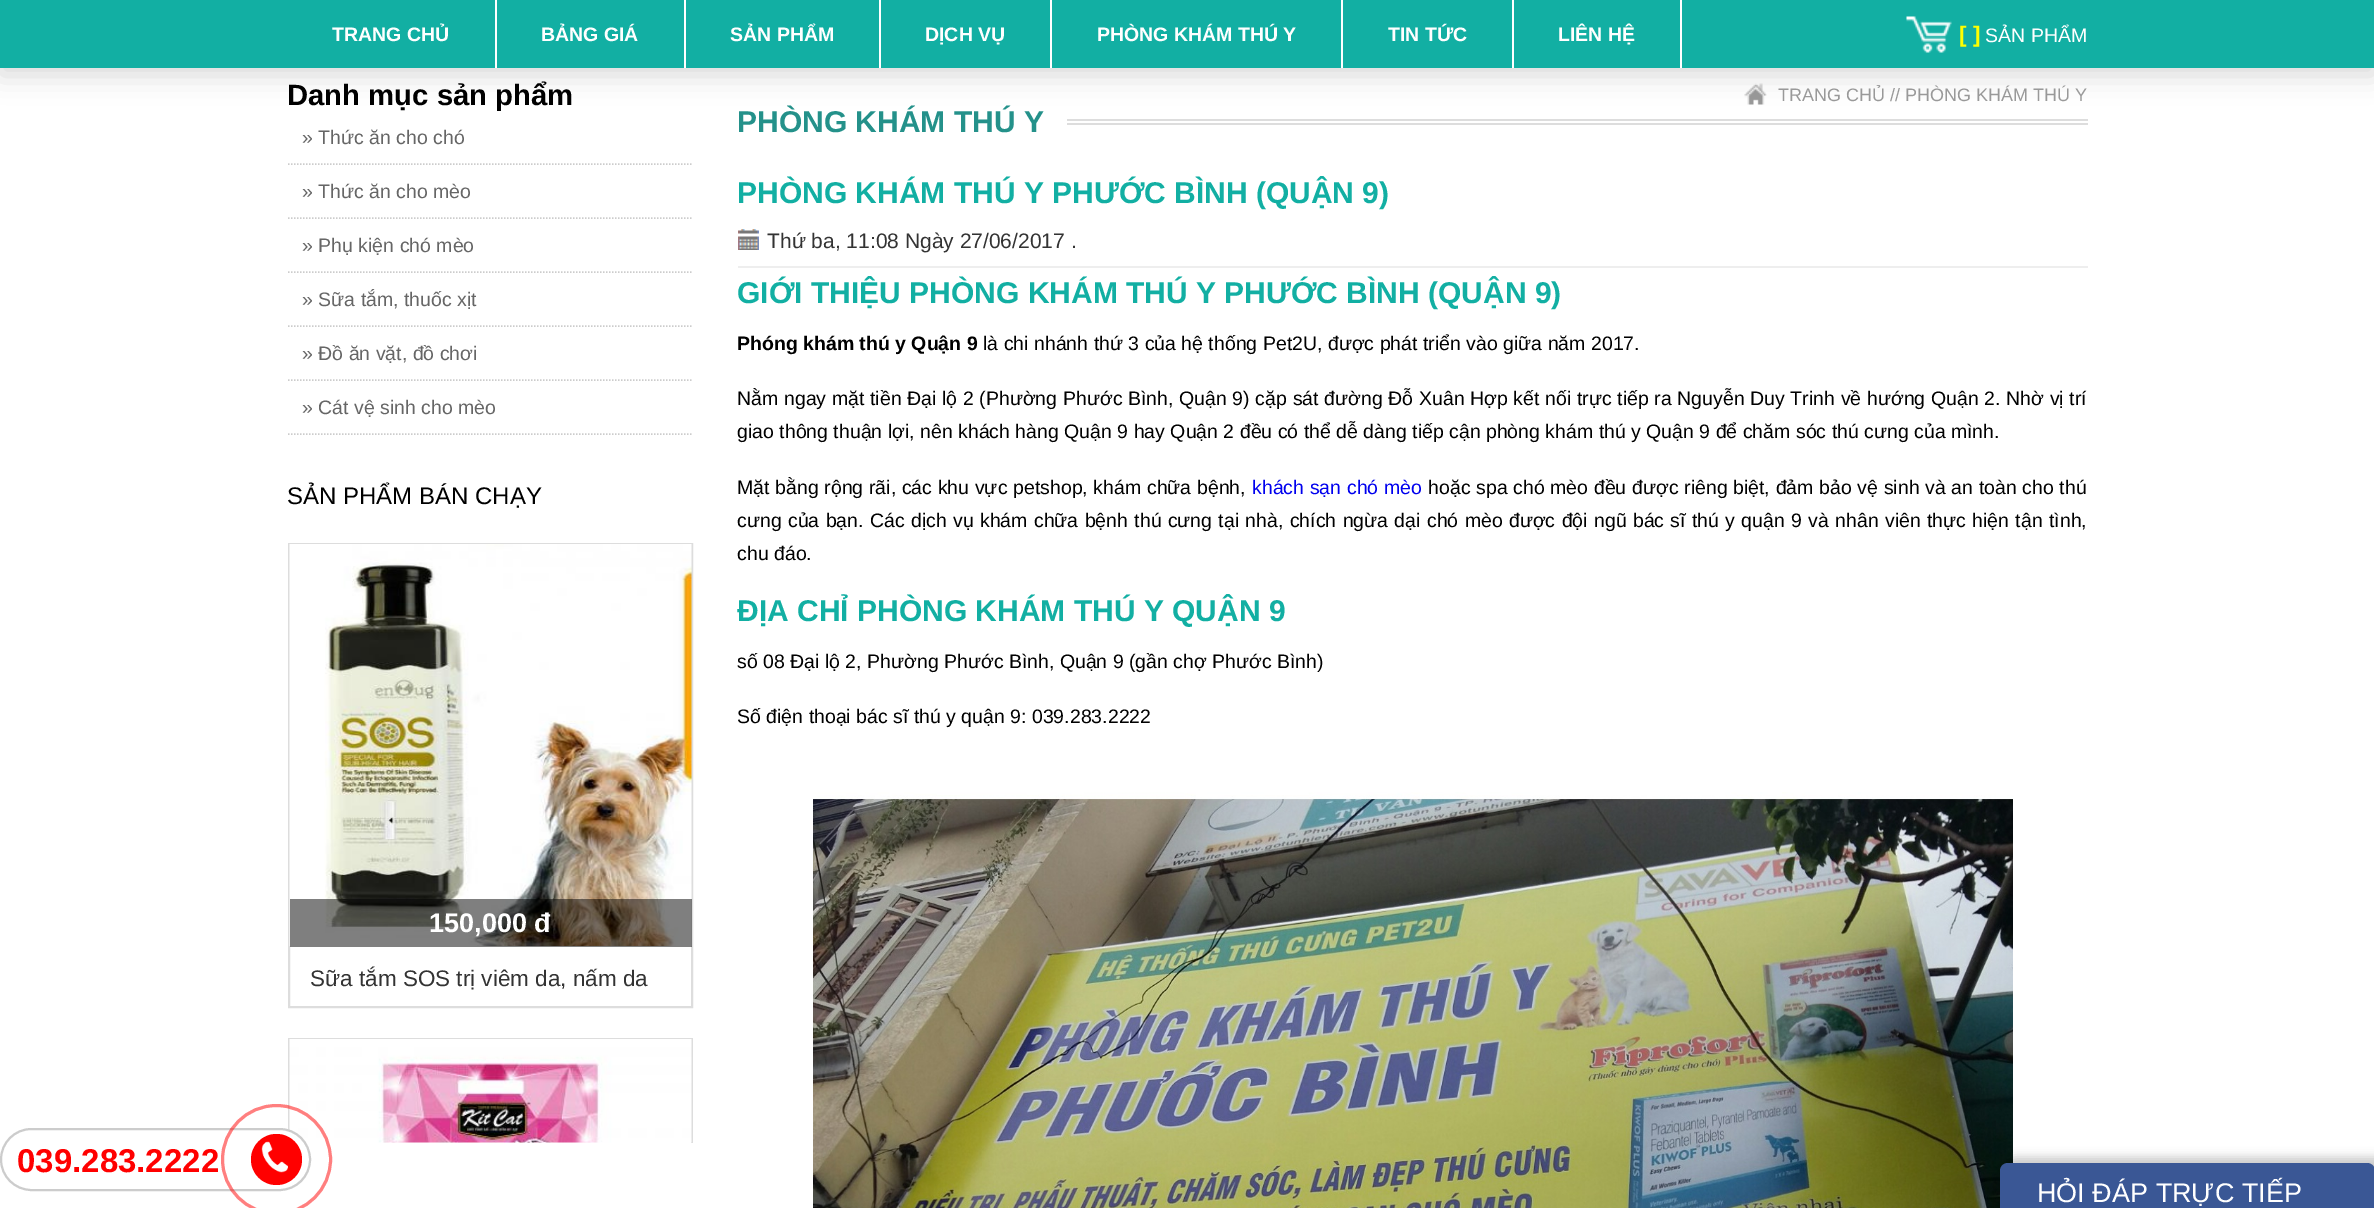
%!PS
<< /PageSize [2374 1208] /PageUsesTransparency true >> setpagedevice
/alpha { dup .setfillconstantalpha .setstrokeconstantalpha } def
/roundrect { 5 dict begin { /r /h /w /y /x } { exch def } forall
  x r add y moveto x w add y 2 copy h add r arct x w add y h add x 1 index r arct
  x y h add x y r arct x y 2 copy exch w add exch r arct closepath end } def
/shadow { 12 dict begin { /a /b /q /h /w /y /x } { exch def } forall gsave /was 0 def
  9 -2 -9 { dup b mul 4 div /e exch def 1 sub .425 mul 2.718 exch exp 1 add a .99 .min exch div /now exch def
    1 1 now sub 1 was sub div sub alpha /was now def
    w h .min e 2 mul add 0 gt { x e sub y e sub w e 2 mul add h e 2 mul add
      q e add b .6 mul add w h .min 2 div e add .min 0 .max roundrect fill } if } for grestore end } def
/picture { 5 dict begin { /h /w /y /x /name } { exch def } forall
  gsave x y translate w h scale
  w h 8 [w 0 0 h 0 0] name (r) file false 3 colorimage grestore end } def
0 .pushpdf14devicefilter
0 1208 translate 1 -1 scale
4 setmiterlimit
1 setgray
0 0 2374 1208 rectfill
(img4.rgb) 1744 83 23 22 picture
0 setgray
0 8 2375 67 0 13.5 0.15 shadow
0.071 0.686 0.639 setrgbcolor
0 0 2374 68 rectfill
1 setgray
495 0 2 68 rectfill
/LiberationSans-Bold [19.5 0 0 -19.5 0 0] selectfont
332 41 moveto (TRANG CHỦ) show
684 0 2 68 rectfill
541 41 moveto (BẢNG GIÁ) show
879 0 2 68 rectfill
730 41 moveto (SẢN PHẨM) show
1050 0 2 68 rectfill
925 41 moveto (DỊCH VỤ) show
1341 0 2 68 rectfill
1097 41 moveto (PHÒNG KHÁM THÚ Y) show
1512 0 2 68 rectfill
1388 41 moveto (TIN TỨC) show
1680 0 2 68 rectfill
1558 41 moveto (LIÊN HỆ) show
(img1.rgb) 1906 16 46 37 picture
/LiberationSans-Bold [22.5 0 0 -22.5 0 0] selectfont
1 1 0 setrgbcolor
1959 42 moveto ([ ]) show
/LiberationSans-Regular [19.5 0 0 -19.5 0 0] selectfont
1 setgray
1985 42 moveto (SẢN PHẨM) show
/LiberationSans-Bold [29.25 0 0 -29.25 0 0] selectfont
0 setgray
287 105 moveto (Danh mục sản phẩm) show
0.8 setgray
1.5 setlinewidth
[1.5 1.5] 0 setdash
newpath 288 164 moveto 693 164 lineto stroke
/LiberationSans-Regular [19.5 0 0 -19.5 0 0] selectfont
0.4 setgray
302 144 moveto (» Thức ăn cho chó) show
0.8 setgray
newpath 288 218 moveto 693 218 lineto stroke
0.4 setgray
302 198 moveto (» Thức ăn cho mèo) show
0.8 setgray
newpath 288 272 moveto 693 272 lineto stroke
0.4 setgray
302 252 moveto (» Phụ kiện chó mèo) show
0.8 setgray
newpath 288 326 moveto 693 326 lineto stroke
0.4 setgray
302 306 moveto (» Sữa tắm, thuốc xịt) show
0.8 setgray
newpath 288 380 moveto 693 380 lineto stroke
0.4 setgray
302 360 moveto (» Đồ ăn vặt, đồ chơi) show
0.8 setgray
newpath 288 434 moveto 693 434 lineto stroke
0.4 setgray
302 414 moveto (» Cát vệ sinh cho mèo) show
/LiberationSans-Regular [24 0 0 -24 0 0] selectfont
0 setgray
287 504 moveto (SẢN PHẨM BÁN CHẠY) show
0.867 setgray
2 setlinewidth
[] 0 setdash
289 544 403 463 rectstroke
(img2.rgb) 289 544 403 402 picture
0.5 alpha
0 setgray
290 899 402 48 rectfill
/LiberationSans-Bold [27 0 0 -27 0 0] selectfont
1 alpha
1 setgray
429 932 moveto (150,000 đ) show
/LiberationSans-Regular [22.5 0 0 -22.5 0 0] selectfont
0.2 setgray
310 986 moveto (Sữa tắm SOS trị viêm da, nấm da) show
gsave
288 543 405 600 rectclip
0.867 setgray
289 1039 403 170 rectstroke
grestore
(img3.rgb) 289 1039 403 104 picture
/LiberationSans-Regular [18 0 0 -18 0 0] selectfont
0.6 setgray
1778 101 moveto (TRANG CHỦ // PHÒNG KHÁM THÚ Y) show
0.867 setgray
1067 119 1021 2 rectfill
1067 123 1021 2 rectfill
/LiberationSans-Bold [30 0 0 -30 0 0] selectfont
0.141 0.569 0.541 setrgbcolor
737 132 moveto (PHÒNG KHÁM THÚ Y) show
0.071 0.686 0.639 setrgbcolor
737 203 moveto (PHÒNG KHÁM THÚ Y PHƯỚC BÌNH \(QUẬN 9\)) show
(img5.rgb) 738 229 21 21 picture
0.933 setgray
738 266 1350 2 rectfill
/LiberationSans-Regular [21 0 0 -21 0 0] selectfont
0.2 setgray
767 248 moveto (Thứ ba, 11:08 Ngày 27/06/2017 .) show
/LiberationSans-Bold [30 0 0 -30 0 0] selectfont
0.071 0.686 0.639 setrgbcolor
737 303 moveto (GIỚI THIỆU PHÒNG KHÁM THÚ Y PHƯỚC BÌNH \(QUẬN 9\)) show
/LiberationSans-Bold [19.5 0 0 -19.5 0 0] selectfont
0 setgray
737 350 moveto (Phóng khám thú y Quận 9) show
/LiberationSans-Regular [19.5 0 0 -19.5 0 0] selectfont
983 350 moveto (là chi nhánh thứ 3 của hệ thống Pet2U, được phát triển vào giữa năm 2017.) show
737 405 moveto 0.25 0 32 (Nằm ngay mặt tiền Đại lộ 2 \(Phường Phước Bình, Quận 9\) cặp sát đường Đỗ Xuân Hợp kết nối trực tiếp ra Nguyễn Duy Trinh về hướng Quận 2. Nhờ vị trí) widthshow
737 438 moveto (giao thông thuận lợi, nên khách hàng Quận 9 hay Quận 2 đều có thể dễ dàng tiếp cận phòng khám thú y Quận 9 để chăm sóc thú cưng của mình.) show
737 494 moveto 0.25 0 32 (Mặt bằng rộng rãi, các khu vực petshop, khám chữa bệnh,) widthshow
0 0 0.933 setrgbcolor
1252 494 moveto 0.25 0 32 (khách sạn chó mèo) widthshow
0 setgray
1428 494 moveto 0.25 0 32 (hoặc spa chó mèo đều được riêng biệt, đảm bảo vệ sinh và an toàn cho thú) widthshow
737 527 moveto 0.9 0 32 (cưng của bạn. Các dịch vụ khám chữa bệnh thú cưng tại nhà, chích ngừa dại chó mèo được đội ngũ bác sĩ thú y quận 9 và nhân viên thực hiện tận tình,) widthshow
737 560 moveto (chu đáo.) show
/LiberationSans-Bold [30 0 0 -30 0 0] selectfont
0.071 0.686 0.639 setrgbcolor
737 621 moveto (ĐỊA CHỈ PHÒNG KHÁM THÚ Y QUẬN 9) show
/LiberationSans-Regular [19.5 0 0 -19.5 0 0] selectfont
0 setgray
737 668 moveto (số 08 Đại lộ 2, Phường Phước Bình, Quận 9 \(gần chợ Phước Bình\)) show
737 723 moveto (Số điện thoại bác sĩ thú y quận 9: 039.283.2222) show
(img6.rgb) 813 792 1200 416 picture
1 setgray
1 1129 309 61 30.5 roundrect gsave fill grestore
0.8 setgray
stroke
/LiberationSans-Bold [33 0 0 -33 0 0] selectfont
1 0 0 setrgbcolor
17 1172 moveto (039.283.2222) show
0.5 alpha
3 setlinewidth
newpath 276.5 1159.5 54 0 360 arc closepath stroke
1 alpha
newpath 276.5 1159.5 25.5 0 360 arc closepath fill
(img7.rgb) 261 1141 27 32 picture
0 setgray
1994 1157 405 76 23 4.5 0.2 shadow
0.227 0.341 0.584 setrgbcolor
newpath 2008 1163 moveto 2367 1163 lineto 2371.5 1163 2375 1166.5 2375 1171 curveto 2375 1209 lineto 2000 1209 lineto 2000 1171 lineto 2000 1166.5 2003.5 1163 2008 1163 curveto closepath fill
/LiberationSans-Regular [27 0 0 -27 0 0] selectfont
1 setgray
2037 1202 moveto (HỎI ĐÁP TRỰC TIẾP) show
.poppdf14devicefilter showpage
